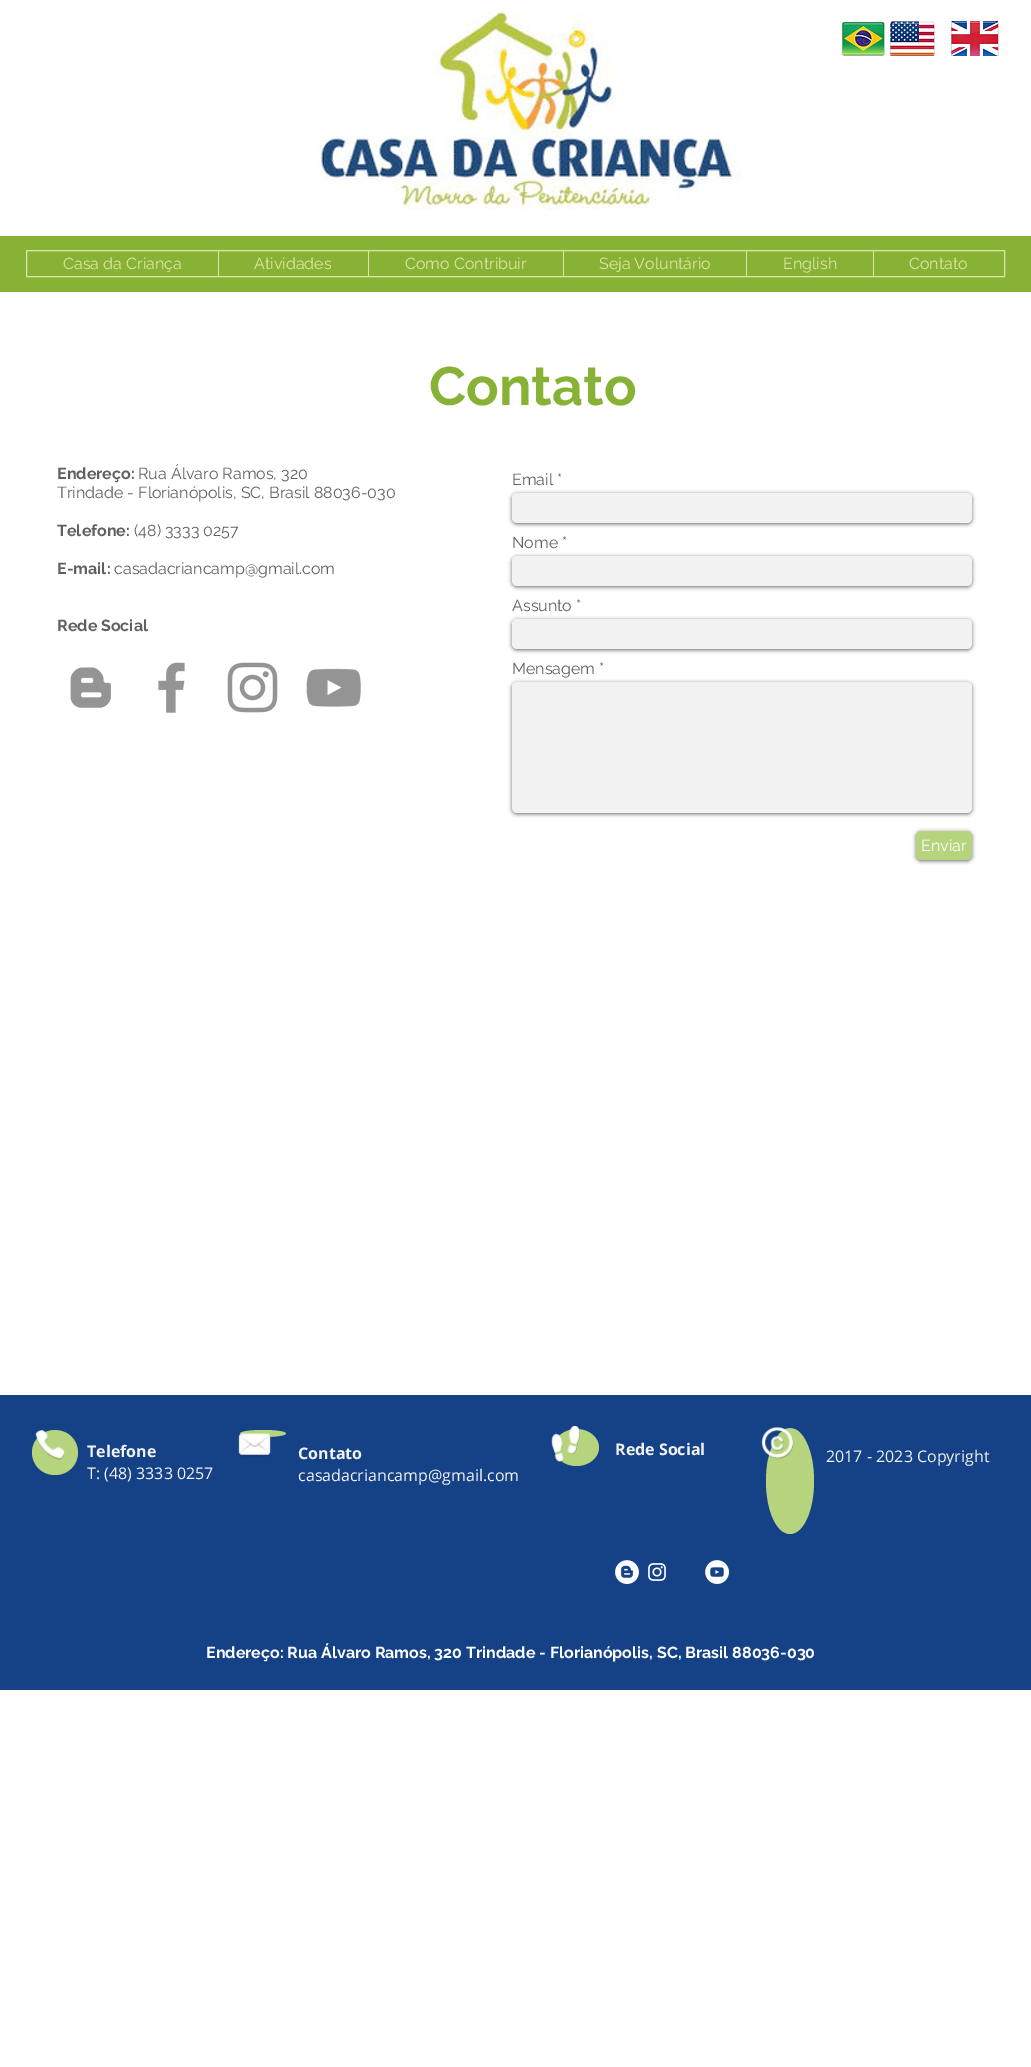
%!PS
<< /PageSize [1031 2067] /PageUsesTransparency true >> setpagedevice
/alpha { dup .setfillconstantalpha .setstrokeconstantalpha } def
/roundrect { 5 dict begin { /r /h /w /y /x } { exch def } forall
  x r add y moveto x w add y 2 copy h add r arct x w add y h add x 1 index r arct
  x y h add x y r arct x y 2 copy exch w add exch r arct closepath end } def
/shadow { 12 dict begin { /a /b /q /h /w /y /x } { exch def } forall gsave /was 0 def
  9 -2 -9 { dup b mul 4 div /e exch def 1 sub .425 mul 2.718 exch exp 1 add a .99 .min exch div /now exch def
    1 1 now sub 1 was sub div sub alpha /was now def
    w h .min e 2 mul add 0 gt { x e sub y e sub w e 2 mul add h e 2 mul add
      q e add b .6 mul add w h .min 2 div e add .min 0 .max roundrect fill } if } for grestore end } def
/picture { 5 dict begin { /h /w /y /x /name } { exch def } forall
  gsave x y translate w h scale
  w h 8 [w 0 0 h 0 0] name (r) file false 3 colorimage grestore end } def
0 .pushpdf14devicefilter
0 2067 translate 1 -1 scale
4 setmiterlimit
1 setgray
0 0 1031 2067 rectfill
(img1.rgb) 319 11 423 203 picture
(img2.rgb) 842 22 43 34 picture
(img3.rgb) 890 21 45 35 picture
(img4.rgb) 951 21 48 35 picture
0.533 0.698 0.208 setrgbcolor
0 236 1031 56 rectfill
0.867 0.906 0.639 setrgbcolor
26.5 250.5 978 26 rectstroke
/Raleway-Regular [16 0 0 -16 0 0] selectfont
63 269 moveto (Casa da Criança) show
218 251 1 25 rectfill
254 269 moveto (Atividades) show
368 251 1 25 rectfill
405 269 moveto (Como Contribuir) show
563 251 1 25 rectfill
599 269 moveto (Seja Voluntário) show
746 251 1 25 rectfill
783 269 moveto (English) show
873 251 1 25 rectfill
909 269 moveto (Contato) show
/Raleway-Bold [54 0 0 -54 0 0] selectfont
0.533 0.698 0.208 setrgbcolor
429 405 moveto (Contato) show
/Raleway-Bold [16 0 0 -16 0 0] selectfont
0.376 setgray
57 479 moveto (Endereço:) show
/Raleway-Regular [16 0 0 -16 0 0] selectfont
138 479 moveto (Rua Álvaro Ramos, 320) show
57 498 moveto (Trindade - Florianópolis, SC, Brasil 88036-030) show
/Raleway-Bold [16 0 0 -16 0 0] selectfont
57 536 moveto (Telefone:) show
/Raleway-Regular [16 0 0 -16 0 0] selectfont
134 536 moveto (\(48\) 3333 0257) show
/Raleway-Bold [16 0 0 -16 0 0] selectfont
57 574 moveto (E-mail:) show
/Raleway-Regular [16 0 0 -16 0 0] selectfont
114 574 moveto (casadacriancamp@gmail.com) show
/Raleway-Bold [16 0 0 -16 0 0] selectfont
57 631 moveto (Rede Social) show
/Raleway-Regular [16 0 0 -16 0 0] selectfont
512 485 moveto (Email *) show
0 setgray
512 494 460 30 5 2 0.6 shadow
0.949 setgray
512 493 460 30 5 roundrect fill
0.376 setgray
512 548 moveto (Nome *) show
0 setgray
512 557 460 30 5 2 0.6 shadow
0.949 setgray
512 556 460 30 5 roundrect fill
0.376 setgray
512 611 moveto (Assunto *) show
0 setgray
512 620 460 30 5 2 0.6 shadow
0.949 setgray
512 619 460 30 5 roundrect fill
0.376 setgray
512 674 moveto (Mensagem *) show
0 setgray
512 683 460 131 5 2 0.6 shadow
0.949 setgray
512 682 460 131 5 roundrect fill
0 setgray
916 832 56 29 5 2 0.6 shadow
0.714 0.831 0.494 setrgbcolor
916 831 56 29 5 roundrect fill
1 setgray
921 851 moveto (Enviar) show
(img5.rgb) 70 667 41 41 picture
(img6.rgb) 158 662 27 51 picture
(img7.rgb) 227 662 51 51 picture
(img8.rgb) 306 668 55 39 picture
0.082 0.259 0.529 setrgbcolor
0 1395 1031 295 rectfill
0.714 0.831 0.494 setrgbcolor
32 1430 46 45 22.5 roundrect fill
newpath 576.5 1429 moveto 589 1429 599 1437.5 599 1447.5 curveto 599 1457.5 589 1466 576.5 1466 curveto 564 1466 554 1457.5 554 1447.5 curveto 554 1437.5 564 1429 576.5 1429 curveto closepath fill
(img9.rgb) 551 1426 29 36 picture
newpath 790 1428 moveto 803.5 1428 814 1451.5 814 1481 curveto 814 1510.5 803.5 1534 790 1534 curveto 776.5 1534 766 1510.5 766 1481 curveto 766 1451.5 776.5 1428 790 1428 curveto closepath fill
(img10.rgb) 761 1427 33 32 picture
(img11.rgb) 35 1430 30 30 picture
/OpenSans-Bold [16 0 0 -16 0 0] selectfont
0.949 setgray
87 1457 moveto (Telefone) show
/OpenSans-Regular [16 0 0 -16 0 0] selectfont
87 1479 moveto (T: \(48\) 3333 0257) show
0.714 0.831 0.494 setrgbcolor
newpath 263 1430 moveto 275.5 1430 286 1431.5 286 1433.5 curveto 286 1435.5 275.5 1437 263 1437 curveto 250.5 1437 240 1435.5 240 1433.5 curveto 240 1431.5 250.5 1430 263 1430 curveto closepath fill
(img12.rgb) 238 1433 33 24 picture
/OpenSans-Bold [16 0 0 -16 0 0] selectfont
0.949 setgray
298 1459 moveto (Contato) show
/OpenSans-Regular [16 0 0 -16 0 0] selectfont
298 1481 moveto (casadacriancamp@gmail.com) show
/OpenSans-Bold [16 0 0 -16 0 0] selectfont
615 1455 moveto (Rede Social) show
/OpenSans-Regular [16 0 0 -16 0 0] selectfont
826 1462 moveto (2017 - 2023 Copyright) show
(img13.rgb) 615 1560 24 24 picture
(img14.rgb) 648 1563 18 18 picture
(img15.rgb) 705 1560 24 24 picture
/Raleway-Bold [16 0 0 -16 0 0] selectfont
1 setgray
206 1658 moveto (Endereço: Rua Álvaro Ramos, 320 Trindade - Florianópolis, SC, Brasil 88036-030) show
.poppdf14devicefilter showpage
